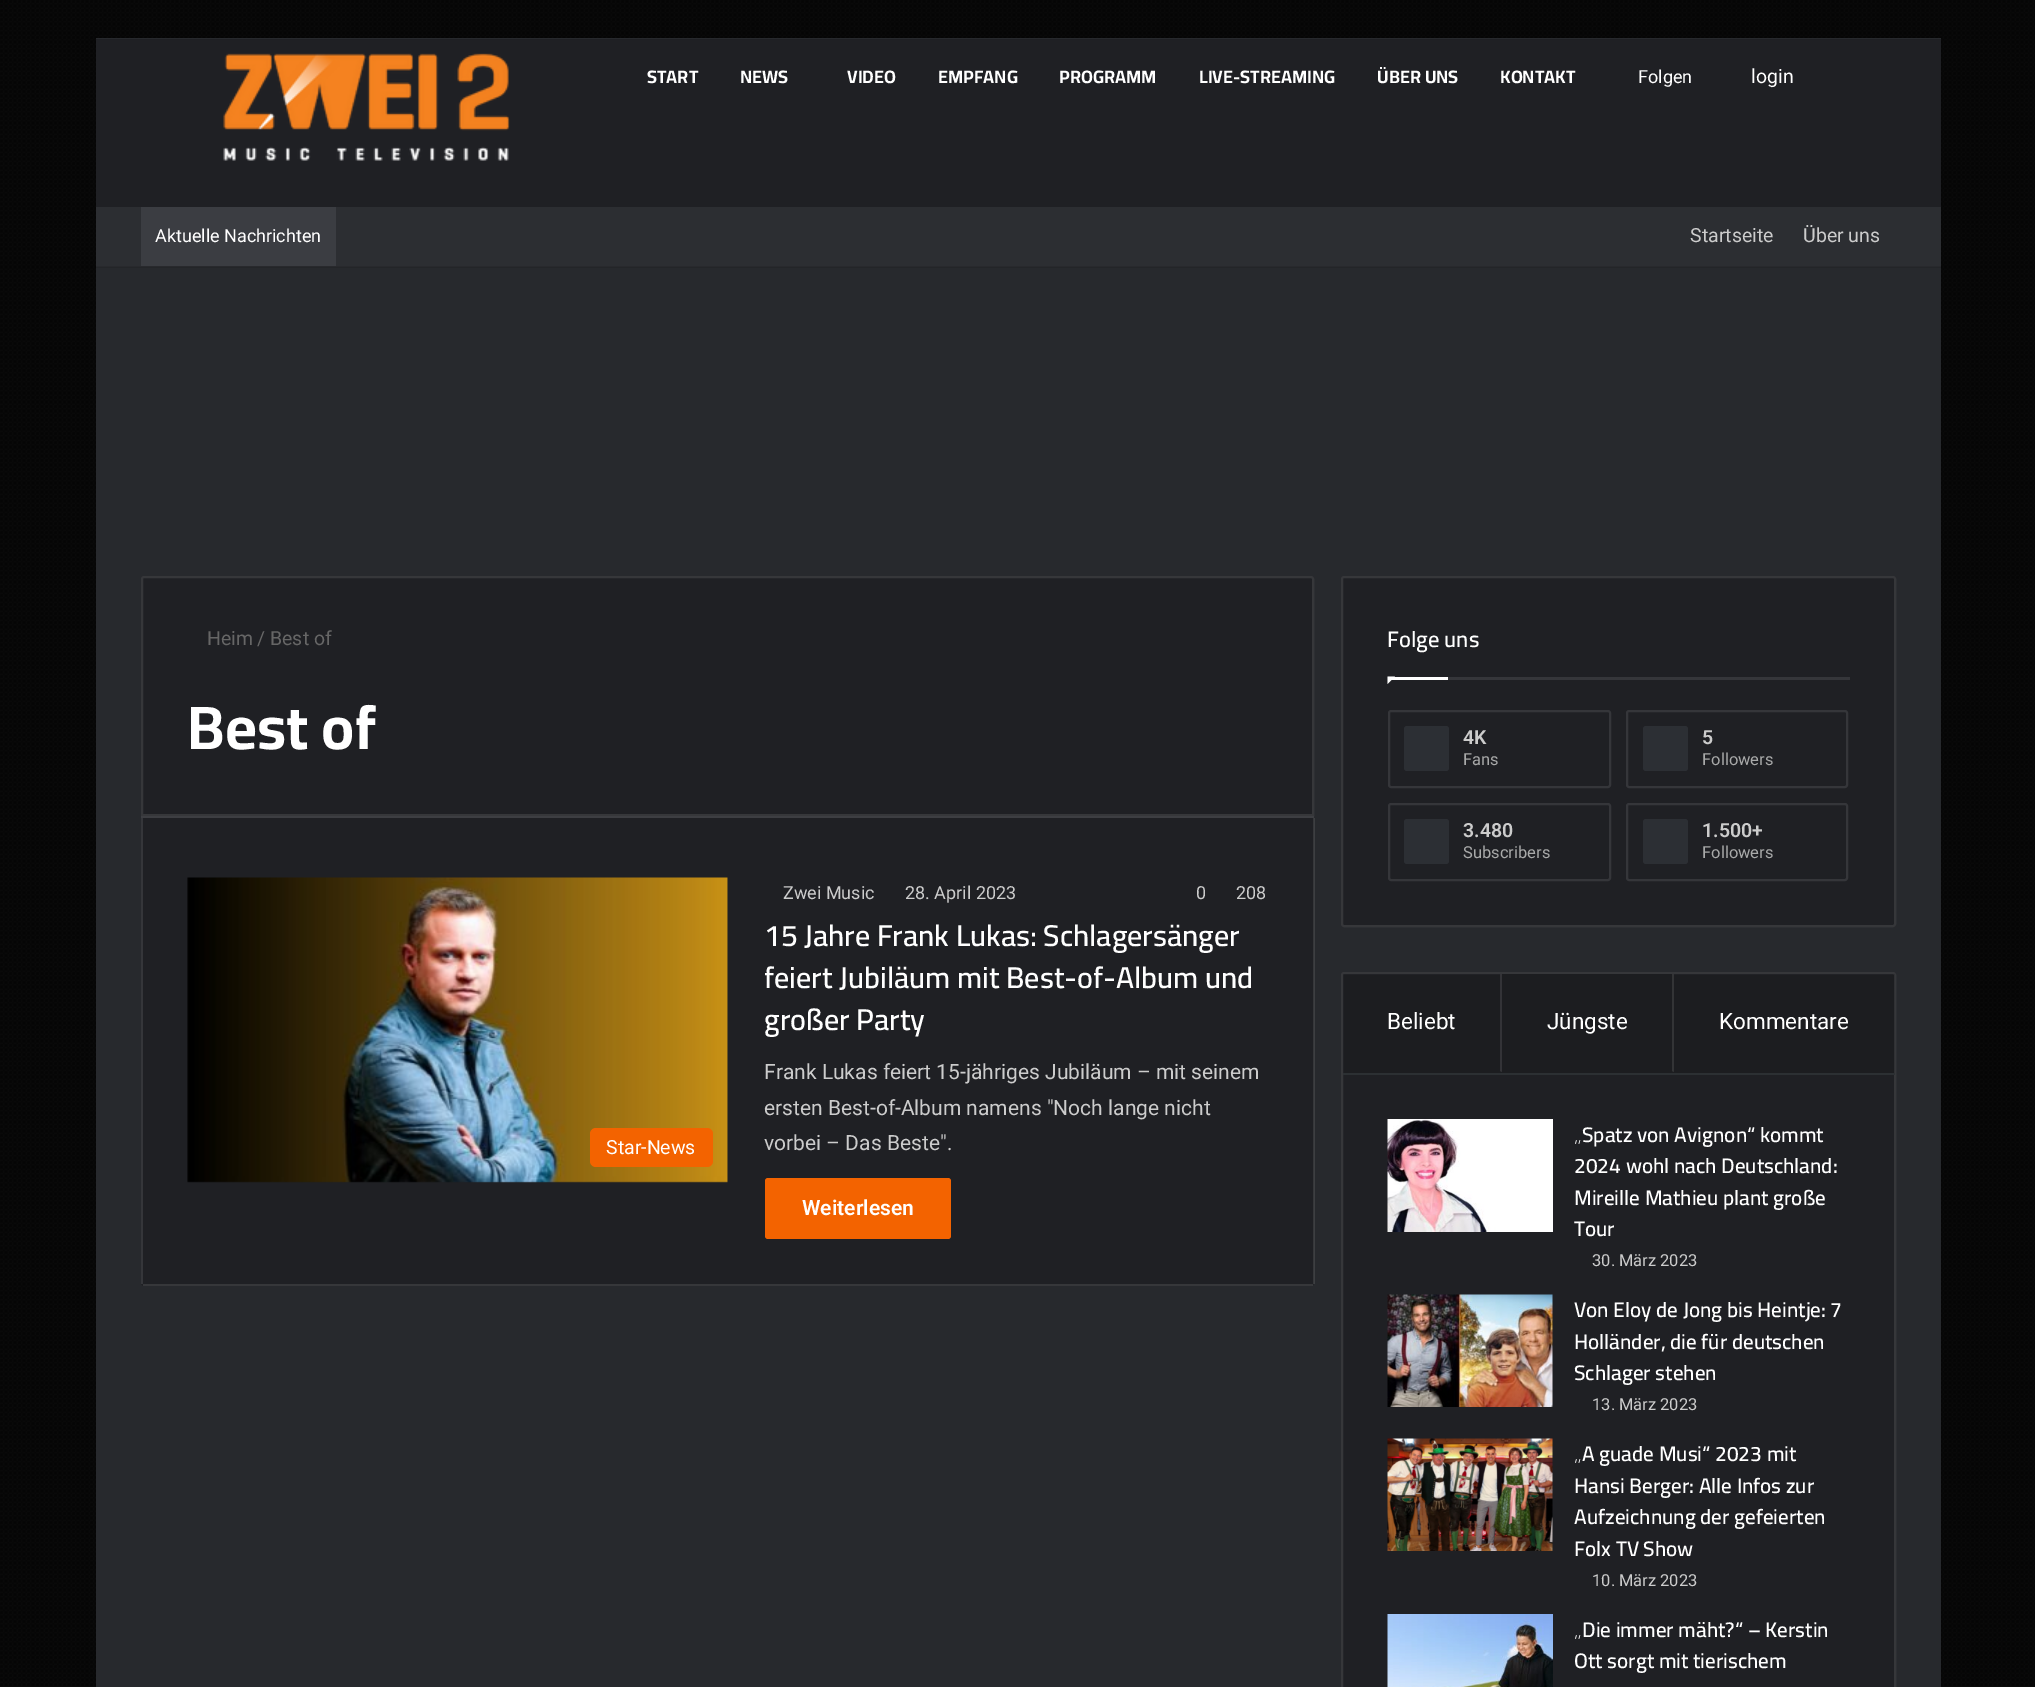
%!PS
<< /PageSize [2035 1687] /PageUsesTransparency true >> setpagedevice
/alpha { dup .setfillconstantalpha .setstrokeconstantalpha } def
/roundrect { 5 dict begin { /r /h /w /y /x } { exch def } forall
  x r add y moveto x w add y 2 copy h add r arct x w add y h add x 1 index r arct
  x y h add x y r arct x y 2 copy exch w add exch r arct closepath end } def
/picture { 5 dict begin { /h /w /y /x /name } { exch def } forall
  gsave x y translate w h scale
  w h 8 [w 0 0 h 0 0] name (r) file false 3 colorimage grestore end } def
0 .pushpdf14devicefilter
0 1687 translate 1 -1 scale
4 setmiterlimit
0.039 setgray
0 0 2035 1687 rectfill
(img1.rgb) 0 0 2035 1686 picture
0.153 0.161 0.176 setrgbcolor
96 38 1845 1649 rectfill
0.122 0.125 0.141 setrgbcolor
96 39 1845 168 rectfill
(img2.rgb) 223 53 287 108 picture
/Cairo-Bold [18 0 0 -18 0 0] selectfont
1 setgray
647 83 moveto (START) show
740 83 moveto (NEWS) show
847 83 moveto (VIDEO) show
938 83 moveto (EMPFANG) show
1059 83 moveto (PROGRAMM) show
1199 83 moveto (LIVE-STREAMING) show
1377 83 moveto (ÜBER UNS) show
1500 83 moveto (KONTAKT) show
/Roboto-Regular [18 0 0 -18 0 0] selectfont
1638 83 moveto (Folgen) show
/Roboto-Regular [19.5 0 0 -19.5 0 0] selectfont
1751 83 moveto (login) show
0.173 0.18 0.196 setrgbcolor
96 207 1845 60 rectfill
0.1 alpha
0 setgray
96 266 1845 2 rectfill
1 alpha
0.231 0.239 0.259 setrgbcolor
141 207 195 59 rectfill
/Roboto-Regular [18 0 0 -18 0 0] selectfont
1 setgray
155 242 moveto (Aktuelle Nachrichten) show
/Roboto-Regular [19.5 0 0 -19.5 0 0] selectfont
0.8 setgray
1690 242 moveto (Startseite) show
1803 242 moveto (Über uns) show
0.122 0.125 0.141 setrgbcolor
newpath 144 576 moveto 1311 576 lineto 1312.5 576 1314 577.5 1314 579 curveto 1314 816 lineto 141 816 lineto 141 579 lineto 141 577.5 142.5 576 144 576 curveto closepath fill
0.1 alpha
1 setgray
2 setlinewidth
newpath 144 577 moveto 1311 577 lineto 1312 577 1313 578 1313 579 curveto 1313 815 lineto 142 815 lineto 142 579 lineto 142 578 143 577 144 577 curveto closepath stroke
1 alpha
0.4 setgray
207 645 moveto (Heim) show
257 645 moveto (/) show
270 645 moveto (Best of) show
/Cairo-Bold [61.5 0 0 -61.5 0 0] selectfont
1 setgray
187 749 moveto (Best of) show
0.239 0.243 0.259 setrgbcolor
141 816 1173 2 rectfill
0.122 0.125 0.141 setrgbcolor
newpath 141 818 moveto 1314 818 lineto 1314 1283 lineto 1314 1284.5 1312.5 1286 1311 1286 curveto 144 1286 lineto 142.5 1286 141 1284.5 141 1283 curveto closepath fill
0.1 alpha
1 setgray
1313 818 2 466 rectfill
143 1284 1170 2 rectfill
1 alpha
0.208 0.212 0.227 setrgbcolor
141 818 2 466 rectfill
(img3.rgb) 187 877 541 306 picture
0.953 0.388 0 setrgbcolor
590 1128 123 39 6 roundrect fill
/Roboto-Regular [19.5 0 0 -19.5 0 0] selectfont
1 setgray
606 1154 moveto (Star-News) show
/Roboto-Regular [18 0 0 -18 0 0] selectfont
0.8 setgray
783 899 moveto (Zwei Music) show
905 899 moveto (28. April 2023) show
1196 899 moveto (0) show
1236 899 moveto (208) show
/Cairo-SemiBold [30 0 0 -30 0 0] selectfont
1 setgray
764 946 moveto (15 Jahre Frank Lukas: Schlagersänger) show
764 988 moveto (feiert Jubiläum mit Best-of-Album und) show
764 1030 moveto (großer Party) show
/Roboto-Regular [21 0 0 -21 0 0] selectfont
0.8 setgray
764 1079 moveto (Frank Lukas feiert 15-jähriges Jubiläum – mit seinem) show
764 1115 moveto (ersten Best-of-Album namens "Noch lange nicht) show
764 1150 moveto (vorbei – Das Beste".) show
0.953 0.388 0 setrgbcolor
765 1178 186 61 3 roundrect fill
/Roboto-SemiBold [21 0 0 -21 0 0] selectfont
1 setgray
802 1215 moveto (Weiterlesen) show
0.122 0.125 0.141 setrgbcolor
1341 576 555 351 3 roundrect fill
0.1 alpha
1 setgray
1342 577 553 349 2 roundrect stroke
1 alpha
0.208 0.212 0.227 setrgbcolor
1448 677 402 3 rectfill
/Cairo-SemiBold [22.5 0 0 -22.5 0 0] selectfont
1 setgray
1387 647 moveto (Folge uns) show
newpath 1387.5 676.5 moveto 1395 676.5 lineto 1387.5 684 lineto closepath fill
1388 677 60 3 rectfill
0.208 0.212 0.227 setrgbcolor
1389 711 221 76 2 roundrect stroke
0.173 0.184 0.204 setrgbcolor
1404 726 45 45 3 roundrect fill
/Roboto-SemiBold [19.5 0 0 -19.5 0 0] selectfont
0.8 setgray
1463 744 moveto (4K) show
/Roboto-Regular [16.5 0 0 -16.5 0 0] selectfont
0.663 0.667 0.667 setrgbcolor
1463 765 moveto (Fans) show
0.208 0.212 0.227 setrgbcolor
1627 711 220 76 2 roundrect stroke
0.173 0.184 0.204 setrgbcolor
1643 726 45 45 3 roundrect fill
/Roboto-SemiBold [19.5 0 0 -19.5 0 0] selectfont
0.8 setgray
1702 744 moveto (5) show
/Roboto-Regular [16.5 0 0 -16.5 0 0] selectfont
0.663 0.667 0.667 setrgbcolor
1702 765 moveto (Followers) show
0.208 0.212 0.227 setrgbcolor
1389 804 221 76 2 roundrect stroke
0.173 0.184 0.204 setrgbcolor
1404 819 45 45 3 roundrect fill
/Roboto-SemiBold [19.5 0 0 -19.5 0 0] selectfont
0.8 setgray
1463 837 moveto (3.480) show
/Roboto-Regular [16.5 0 0 -16.5 0 0] selectfont
0.663 0.667 0.667 setrgbcolor
1463 858 moveto (Subscribers) show
0.208 0.212 0.227 setrgbcolor
1627 804 220 76 2 roundrect stroke
0.173 0.184 0.204 setrgbcolor
1643 819 45 45 3 roundrect fill
/Roboto-SemiBold [19.5 0 0 -19.5 0 0] selectfont
0.8 setgray
1702 837 moveto (1.500+) show
/Roboto-Regular [16.5 0 0 -16.5 0 0] selectfont
0.663 0.667 0.667 setrgbcolor
1702 858 moveto (Followers) show
0.122 0.125 0.141 setrgbcolor
1341 972 555 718 3 roundrect fill
0.1 alpha
1 setgray
1342 973 553 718 2 roundrect stroke
1 alpha
0.173 0.188 0.2 setrgbcolor
1343 1073 552 2 rectfill
0.1 alpha
0 setgray
1343 974 159 99 rectfill
1 alpha
0.2 0.2 0.216 setrgbcolor
newpath 1502 974 moveto 1502 1072 lineto 1500 1071 lineto 1500 974 lineto closepath fill
/Roboto-Regular [22.5 0 0 -22.5 0 0] selectfont
1 setgray
1387 1029 moveto (Beliebt) show
0.11 0.114 0.125 setrgbcolor
1502 974 172 99 rectfill
0.2 0.204 0.212 setrgbcolor
newpath 1674 974 moveto 1674 1072 lineto 1672 1071 lineto 1672 974 lineto closepath fill
1 setgray
1547 1029 moveto (Jüngste) show
0.1 alpha
0 setgray
1674 974 221 99 rectfill
1 alpha
1 setgray
1719 1029 moveto (Kommentare) show
(img4.rgb) 1387 1119 166 113 picture
/Cairo-SemiBold [21 0 0 -21 0 0] selectfont
1574 1142 moveto („Spatz von Avignon“ kommt) show
1574 1173 moveto (2024 wohl nach Deutschland:) show
1574 1205 moveto (Mireille Mathieu plant große) show
1574 1236 moveto (Tour) show
/Roboto-Regular [16.5 0 0 -16.5 0 0] selectfont
0.8 setgray
1592 1266 moveto (30. März 2023) show
(img5.rgb) 1387 1294 166 113 picture
/Cairo-SemiBold [21 0 0 -21 0 0] selectfont
1 setgray
1574 1317 moveto (Von Eloy de Jong bis Heintje: 7) show
1574 1349 moveto (Holländer, die für deutschen) show
1574 1380 moveto (Schlager stehen) show
/Roboto-Regular [16.5 0 0 -16.5 0 0] selectfont
0.8 setgray
1592 1410 moveto (13. März 2023) show
(img6.rgb) 1387 1438 166 113 picture
/Cairo-SemiBold [21 0 0 -21 0 0] selectfont
1 setgray
1574 1461 moveto („A guade Musi“ 2023 mit) show
1574 1493 moveto (Hansi Berger: Alle Infos zur) show
1574 1524 moveto (Aufzeichnung der gefeierten) show
1574 1556 moveto (Folx TV Show) show
/Roboto-Regular [16.5 0 0 -16.5 0 0] selectfont
0.8 setgray
1592 1586 moveto (10. März 2023) show
(img7.rgb) 1387 1614 166 73 picture
/Cairo-SemiBold [21 0 0 -21 0 0] selectfont
1 setgray
1574 1637 moveto („Die immer mäht?“ – Kerstin) show
1574 1668 moveto (Ott sorgt mit tierischem) show
.poppdf14devicefilter showpage
